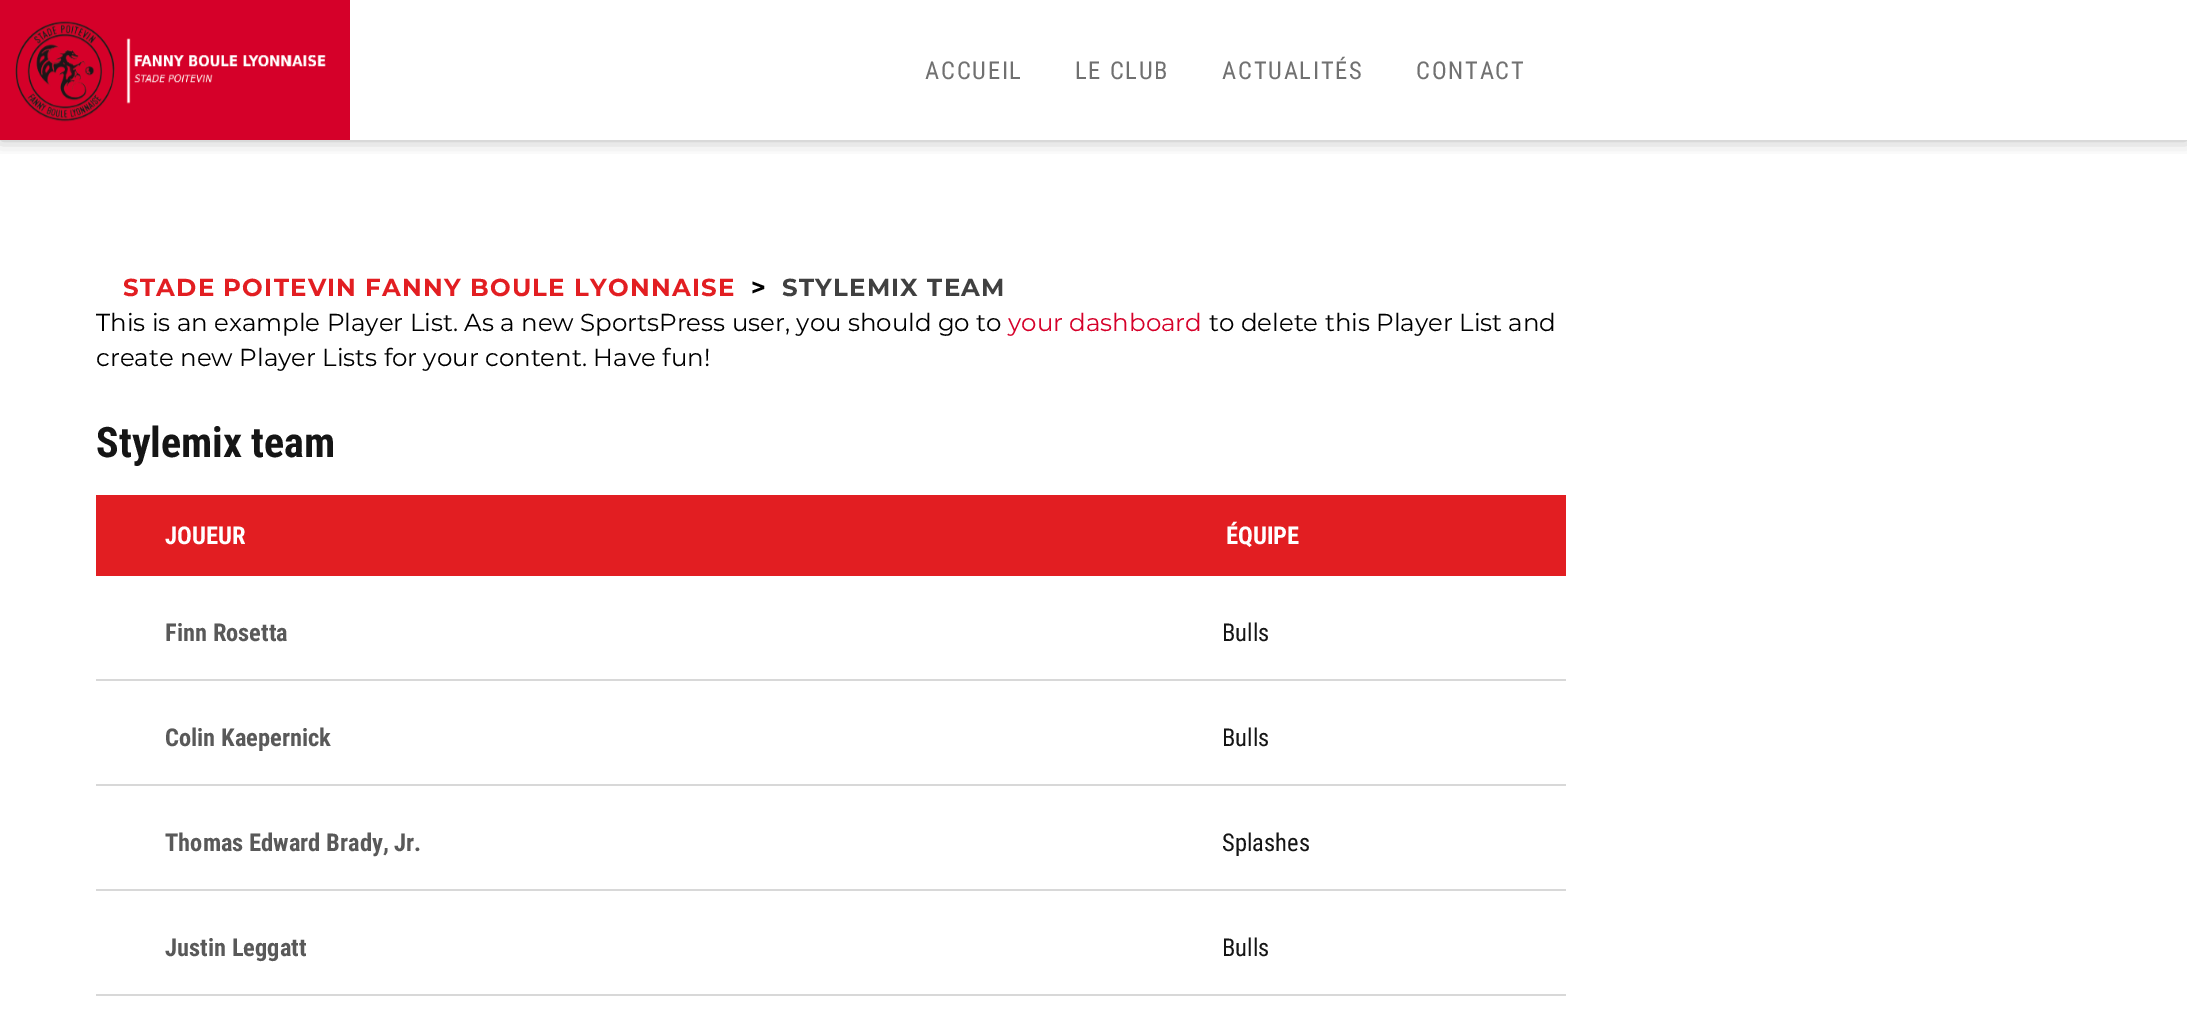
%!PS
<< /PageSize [2187 1010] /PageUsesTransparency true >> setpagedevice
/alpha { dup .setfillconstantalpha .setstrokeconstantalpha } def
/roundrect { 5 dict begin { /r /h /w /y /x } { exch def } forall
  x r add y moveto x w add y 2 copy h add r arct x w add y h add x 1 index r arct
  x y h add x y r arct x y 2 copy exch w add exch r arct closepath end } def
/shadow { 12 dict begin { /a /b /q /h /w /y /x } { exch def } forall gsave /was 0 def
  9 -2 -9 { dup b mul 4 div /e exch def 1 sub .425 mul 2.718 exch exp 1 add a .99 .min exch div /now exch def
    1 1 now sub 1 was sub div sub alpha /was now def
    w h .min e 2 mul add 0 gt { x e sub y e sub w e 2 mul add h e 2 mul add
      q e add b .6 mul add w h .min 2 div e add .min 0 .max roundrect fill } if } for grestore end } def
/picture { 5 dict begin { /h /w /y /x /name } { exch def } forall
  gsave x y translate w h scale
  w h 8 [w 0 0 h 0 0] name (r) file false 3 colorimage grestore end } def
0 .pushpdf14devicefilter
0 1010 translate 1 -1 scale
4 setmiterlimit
1 setgray
0 0 2187 1010 rectfill
gsave
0 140 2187 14 rectclip
0 setgray
0 0 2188 140 0 9 0.3 shadow
grestore
0.835 0 0.161 setrgbcolor
0 0 350 140 rectfill
(img1.rgb) 15 21 311 101 picture
/RobotoCondensed-Regular [24.5 0 0 -24.5 0 0] selectfont
0.439 setgray
925 79 moveto 1.75 0 (ACCUEIL) ashow
1075 79 moveto 1.75 0 (LE CLUB) ashow
1222 79 moveto 1.75 0 (ACTUALITÉS) ashow
1416 79 moveto 1.75 0 (CONTACT) ashow
/Montserrat-Bold [24.5 0 0 -24.5 0 0] selectfont
0.886 0.118 0.133 setrgbcolor
123 296 moveto 1.2 0 (STADE POITEVIN FANNY BOULE LYONNAISE) ashow
0 setgray
751 296 moveto 1.2 0 (>) ashow
0.251 setgray
782 296 moveto 1.2 0 (STYLEMIX TEAM) ashow
/Montserrat-Regular [24.5 0 0 -24.5 0 0] selectfont
0 setgray
96 331 moveto (This is an example Player List. As a new SportsPress user, you should go to) show
0.835 0 0.161 setrgbcolor
1008 331 moveto (your dashboard) show
0 setgray
1209 331 moveto (to delete this Player List and) show
96 366 moveto (create new Player Lists for your content. Have fun!) show
/RobotoCondensed-Bold [42 0 0 -42 0 0] selectfont
0.082 setgray
96 457 moveto (Stylemix team) show
0.886 0.118 0.133 setrgbcolor
96 495 1470 81 rectfill
/RobotoCondensed-Bold [24.5 0 0 -24.5 0 0] selectfont
1 setgray
165 544 moveto (JOUEUR) show
1226 544 moveto (ÉQUIPE) show
0.847 setgray
96 679 1470 2 rectfill
0.349 setgray
165 641 moveto (Finn Rosetta) show
/RobotoCondensed-Regular [24.5 0 0 -24.5 0 0] selectfont
0.082 setgray
1222 641 moveto (Bulls) show
0.847 setgray
96 784 1470 2 rectfill
/RobotoCondensed-Bold [24.5 0 0 -24.5 0 0] selectfont
0.349 setgray
165 746 moveto (Colin Kaepernick) show
/RobotoCondensed-Regular [24.5 0 0 -24.5 0 0] selectfont
0.082 setgray
1222 746 moveto (Bulls) show
0.847 setgray
96 889 1470 2 rectfill
/RobotoCondensed-Bold [24.5 0 0 -24.5 0 0] selectfont
0.349 setgray
165 851 moveto (Thomas Edward Brady, Jr.) show
/RobotoCondensed-Regular [24.5 0 0 -24.5 0 0] selectfont
0.082 setgray
1222 851 moveto (Splashes) show
0.847 setgray
96 994 1470 2 rectfill
/RobotoCondensed-Bold [24.5 0 0 -24.5 0 0] selectfont
0.349 setgray
165 956 moveto (Justin Leggatt) show
/RobotoCondensed-Regular [24.5 0 0 -24.5 0 0] selectfont
0.082 setgray
1222 956 moveto (Bulls) show
.poppdf14devicefilter showpage
